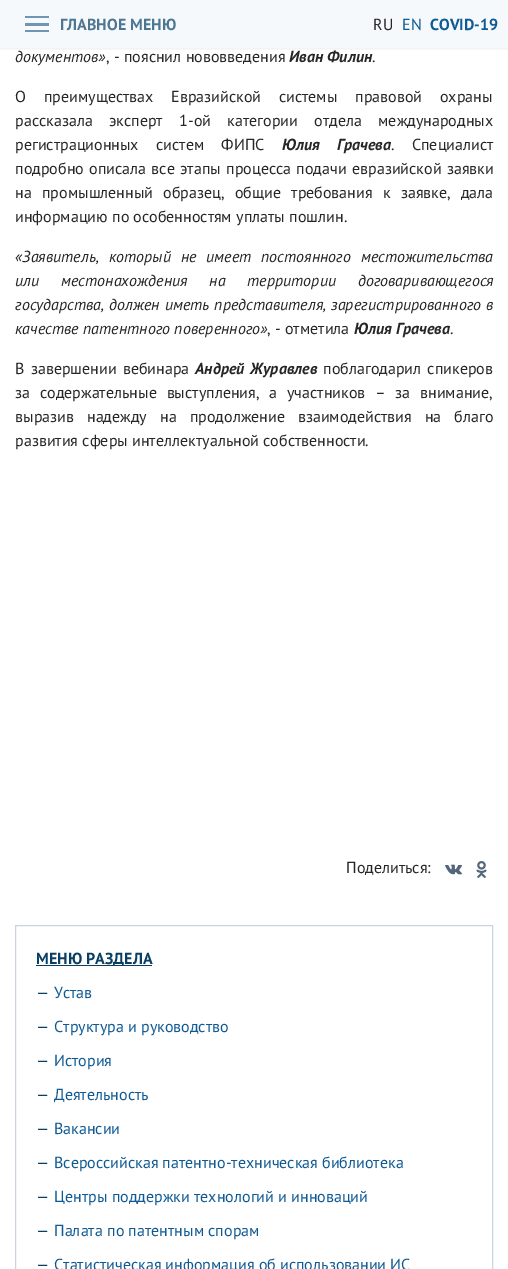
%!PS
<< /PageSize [508 1269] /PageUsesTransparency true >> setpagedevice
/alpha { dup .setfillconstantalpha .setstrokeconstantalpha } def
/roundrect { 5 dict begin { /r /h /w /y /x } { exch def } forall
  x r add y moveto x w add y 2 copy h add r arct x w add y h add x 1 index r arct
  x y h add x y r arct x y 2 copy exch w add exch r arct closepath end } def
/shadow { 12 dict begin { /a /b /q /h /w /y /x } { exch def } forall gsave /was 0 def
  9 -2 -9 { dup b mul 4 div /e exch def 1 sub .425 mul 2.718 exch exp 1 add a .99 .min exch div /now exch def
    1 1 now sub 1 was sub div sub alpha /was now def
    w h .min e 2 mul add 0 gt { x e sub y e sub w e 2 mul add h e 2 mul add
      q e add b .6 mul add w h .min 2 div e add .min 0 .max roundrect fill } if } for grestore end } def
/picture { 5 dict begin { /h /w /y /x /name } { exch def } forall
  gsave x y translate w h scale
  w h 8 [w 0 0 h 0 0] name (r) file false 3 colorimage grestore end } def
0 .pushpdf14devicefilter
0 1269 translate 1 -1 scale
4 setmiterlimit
1 setgray
0 0 508 1269 rectfill
0.961 0.976 0.988 setrgbcolor
0 0 508 48 rectfill
gsave
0 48 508 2 rectclip
0 setgray
0 0 508 48 0 2.5 0.1 shadow
grestore
0.443 0.584 0.69 setrgbcolor
25 30 24 2 rectfill
25 23 24 3 rectfill
25 16 24 2 rectfill
/PTSans-Bold [16 0 0 -16 0 0] selectfont
0.306 0.463 0.573 setrgbcolor
60 30 moveto (ГЛАВНОЕ МЕНЮ) show
/PTSans-Regular [16 0 0 -16 0 0] selectfont
0.149 setgray
373 30 moveto (RU) show
0.059 0.353 0.576 setrgbcolor
402 30 moveto (EN) show
/PTSans-Bold [16 0 0 -16 0 0] selectfont
430 30 moveto (СOVID-19) show
/PTSans-Italic [16 0 0 -16 0 0] selectfont
0.149 setgray
15 62 moveto (документов») show
/PTSans-Regular [16 0 0 -16 0 0] selectfont
106 62 moveto (, - пояснил нововведения) show
/PTSans-BoldItalic [16 0 0 -16 0 0] selectfont
289 62 moveto (Иван Филин) show
/PTSans-Regular [16 0 0 -16 0 0] selectfont
372 62 moveto (.) show
15 102 moveto 13.5 0 32 (О преимуществах Евразийской системы правовой охраны) widthshow
15 126 moveto 12 0 32 (рассказала эксперт 1-ой категории отдела международных) widthshow
15 150 moveto 13 0 32 (регистрационных систем ФИПС) widthshow
/PTSans-BoldItalic [16 0 0 -16 0 0] selectfont
282 150 moveto 13 0 32 (Юлия Грачева) widthshow
/PTSans-Regular [16 0 0 -16 0 0] selectfont
391 150 moveto 13 0 32 (. Специалист) widthshow
15 174 moveto 1 0 32 (подробно описала все этапы процесса подачи евразийской заявки) widthshow
15 198 moveto 6 0 32 (на промышленный образец, общие требования к заявке, дала) widthshow
15 222 moveto (информацию по особенностям уплаты пошлин.) show
/PTSans-Italic [16 0 0 -16 0 0] selectfont
15 262 moveto 5.5 0 32 («Заявитель, который не имеет постоянного местожительства) widthshow
15 286 moveto 17.5 0 32 (или местонахождения на территории договаривающегося) widthshow
15 310 moveto 0.5 0 32 (государства, должен иметь представителя, зарегистрированного в) widthshow
15 334 moveto (качестве патентного поверенного») show
/PTSans-Regular [16 0 0 -16 0 0] selectfont
267 334 moveto (, - отметила) show
/PTSans-BoldItalic [16 0 0 -16 0 0] selectfont
354 334 moveto (Юлия Грачева) show
/PTSans-Regular [16 0 0 -16 0 0] selectfont
450 334 moveto (.) show
15 374 moveto 2 0 32 (В завершении вебинара) widthshow
/PTSans-BoldItalic [16 0 0 -16 0 0] selectfont
195 374 moveto 2 0 32 (Андрей Журавлев) widthshow
/PTSans-Regular [16 0 0 -16 0 0] selectfont
323 374 moveto 2 0 32 (поблагодарил спикеров) widthshow
15 398 moveto 5.5 0 32 (за содержательные выступления, а участников – за внимание,) widthshow
15 422 moveto 8.75 0 32 (выразив надежду на продолжение взаимодействия на благо) widthshow
15 446 moveto (развития сферы интеллектуальной собственности.) show
346 873 moveto (Поделиться:) show
(img1.rgb) 445 864 17 11 picture
(img2.rgb) 476 861 11 17 picture
0.792 0.827 0.875 setrgbcolor
15.5 925.5 477 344 rectstroke
0.039 0.243 0.388 setrgbcolor
36 965 116 1 rectfill
/PTSans-Bold [16 0 0 -16 0 0] selectfont
36 964 moveto (МЕНЮ РАЗДЕЛА) show
/PTSans-Regular [16 0 0 -16 0 0] selectfont
36 998 moveto (—) show
0.059 0.353 0.576 setrgbcolor
54 998 moveto (Устав) show
0.039 0.243 0.388 setrgbcolor
36 1032 moveto (—) show
0.059 0.353 0.576 setrgbcolor
54 1032 moveto (Структура и руководство) show
0.039 0.243 0.388 setrgbcolor
36 1066 moveto (—) show
0.059 0.353 0.576 setrgbcolor
54 1066 moveto (История) show
0.039 0.243 0.388 setrgbcolor
36 1100 moveto (—) show
0.059 0.353 0.576 setrgbcolor
54 1100 moveto (Деятельность) show
0.039 0.243 0.388 setrgbcolor
36 1134 moveto (—) show
0.059 0.353 0.576 setrgbcolor
54 1134 moveto (Вакансии) show
0.039 0.243 0.388 setrgbcolor
36 1168 moveto (—) show
0.059 0.353 0.576 setrgbcolor
54 1168 moveto (Всероссийская патентно-техническая библиотека) show
0.039 0.243 0.388 setrgbcolor
36 1202 moveto (—) show
0.059 0.353 0.576 setrgbcolor
54 1202 moveto (Центры поддержки технологий и инноваций) show
0.039 0.243 0.388 setrgbcolor
36 1236 moveto (—) show
0.059 0.353 0.576 setrgbcolor
54 1236 moveto (Палата по патентным спорам) show
0.039 0.243 0.388 setrgbcolor
36 1270 moveto (—) show
0.059 0.353 0.576 setrgbcolor
54 1270 moveto (Статистическая информация об использовании ИС) show
.poppdf14devicefilter showpage
